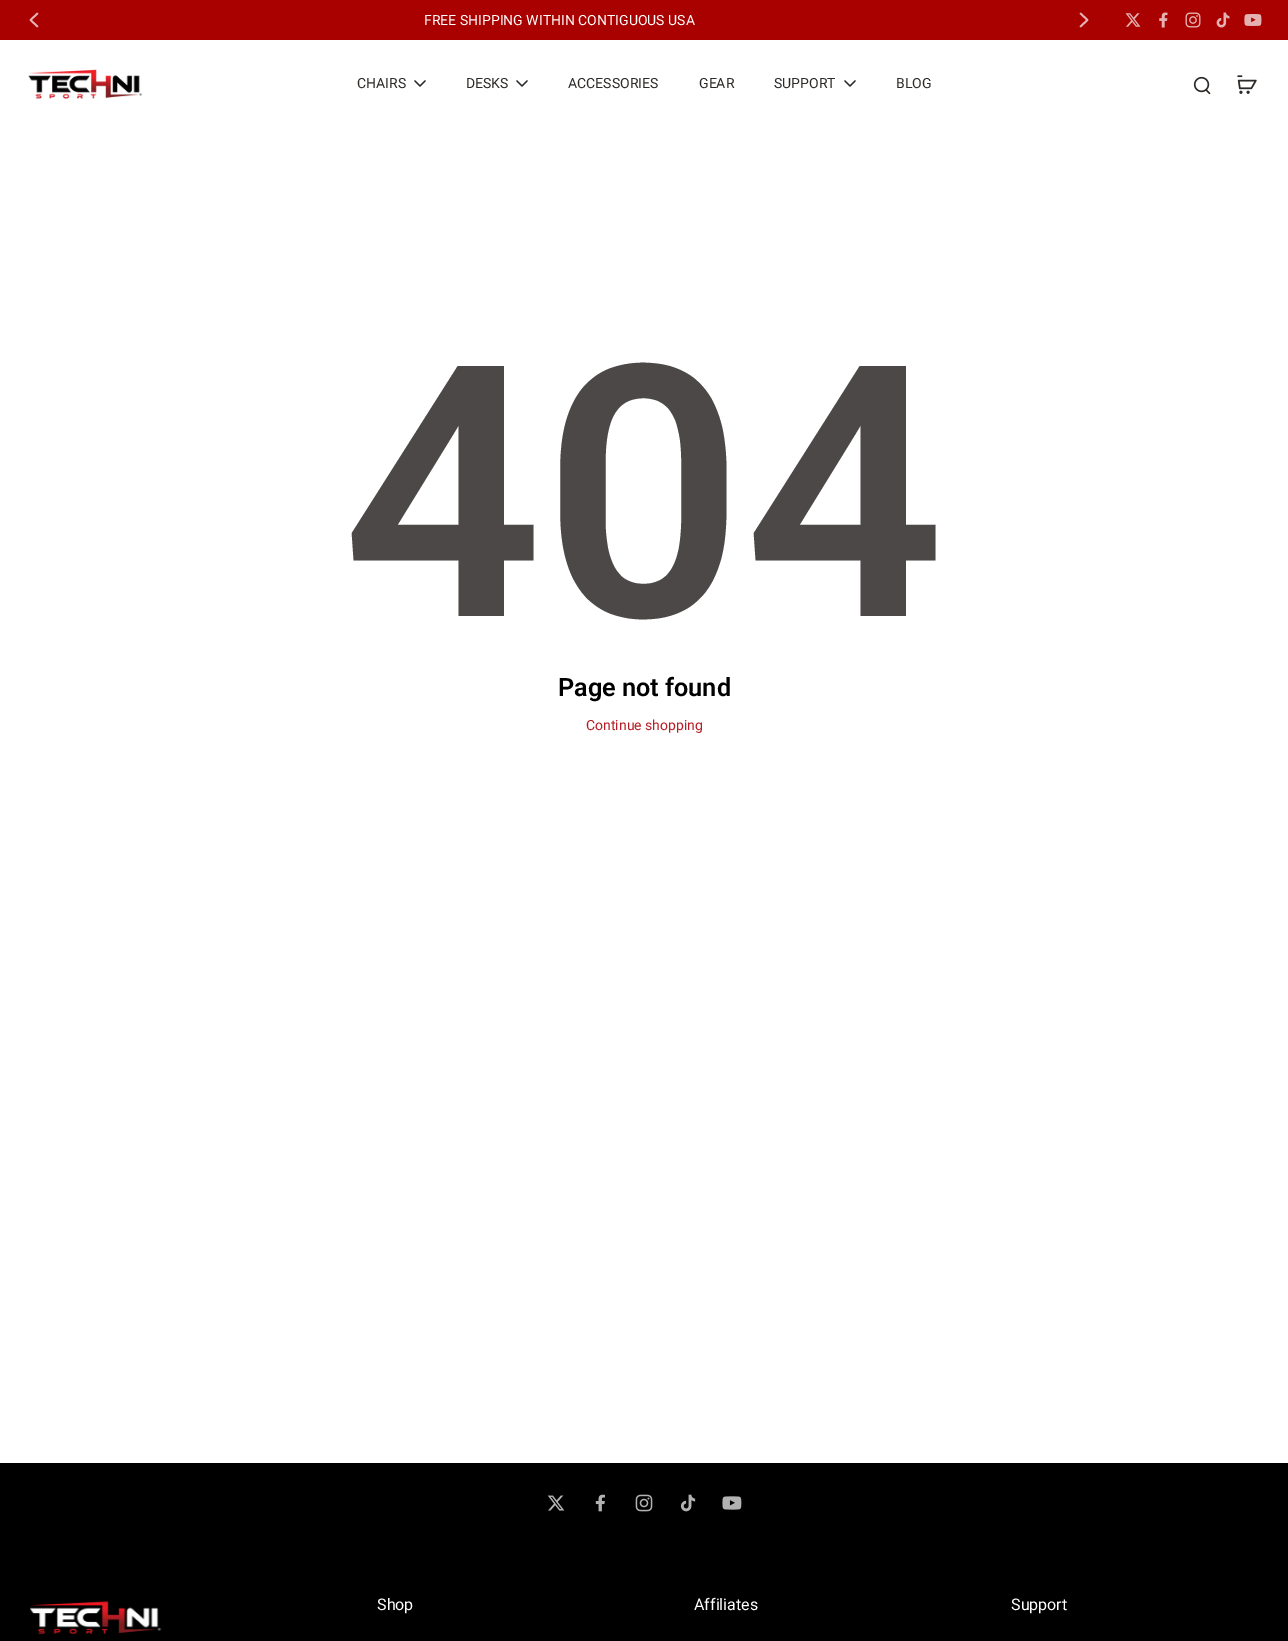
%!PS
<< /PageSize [1288 1641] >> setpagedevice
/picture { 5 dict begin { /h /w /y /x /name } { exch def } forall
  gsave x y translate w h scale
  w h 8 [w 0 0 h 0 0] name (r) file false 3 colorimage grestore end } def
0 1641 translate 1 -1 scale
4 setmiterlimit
1 setgray
0 0 1288 1641 rectfill
0.663 0 0 setrgbcolor
0 0 1288 40 rectfill
0.898 0.702 0.702 setrgbcolor
1.8 setlinewidth
1 setlinecap
1 setlinejoin
newpath 37.5 13.5 moveto 30.5 20 lineto 37.5 26.5 lineto stroke
newpath 1080.5 26.5 moveto 1087.5 20 lineto 1080.5 13.5 lineto stroke
/Roboto-Regular [14 0 0 -14 0 0] selectfont
1 setgray
424 25 moveto (FREE SHIPPING WITHIN CONTIGUOUS USA) show
(img1.rgb) 1125 13 16 14 picture
(img2.rgb) 1159 12 9 16 picture
(img3.rgb) 1185 12 16 16 picture
(img4.rgb) 1216 12 14 16 picture
(img5.rgb) 1244 14 18 12 picture
(img6.rgb) 28 69 115 30 picture
0.176 0.161 0.153 setrgbcolor
357 88 moveto (CHAIRS) show
1.3 setlinewidth
newpath 415 81 moveto 420 86 lineto 425 81 lineto stroke
466 88 moveto (DESKS) show
newpath 517 81 moveto 522 86 lineto 527 81 lineto stroke
568 88 moveto (ACCESSORIES) show
699 88 moveto (GEAR) show
774 88 moveto (SUPPORT) show
newpath 845 81 moveto 850 86 lineto 855 81 lineto stroke
896 88 moveto (BLOG) show
(img7.rgb) 1193 76 18 19 picture
(img8.rgb) 1237 75 20 19 picture
/Roboto-SemiBold [352 0 0 -352 0 0] selectfont
0.294 0.282 0.278 setrgbcolor
342 616 moveto (404) show
/Roboto-SemiBold [25.25 0 0 -25.25 0 0] selectfont
0 setgray
558 696 moveto (Page not found) show
/Roboto-Regular [14 0 0 -14 0 0] selectfont
0.722 0.118 0.153 setrgbcolor
586 730 moveto (Continue shopping) show
0 setgray
0 1463 1288 178 rectfill
(img9.rgb) 547 1495 18 16 picture
(img10.rgb) 595 1494 10 18 picture
(img11.rgb) 635 1494 18 18 picture
(img12.rgb) 680 1494 16 18 picture
(img13.rgb) 722 1496 20 14 picture
(img14.rgb) 30 1601 132 33 picture
/Roboto-Regular [16 0 0 -16 0 0] selectfont
1 setgray
377 1610 moveto (Shop) show
694 1610 moveto (Affiliates) show
1011 1610 moveto (Support) show
showpage
